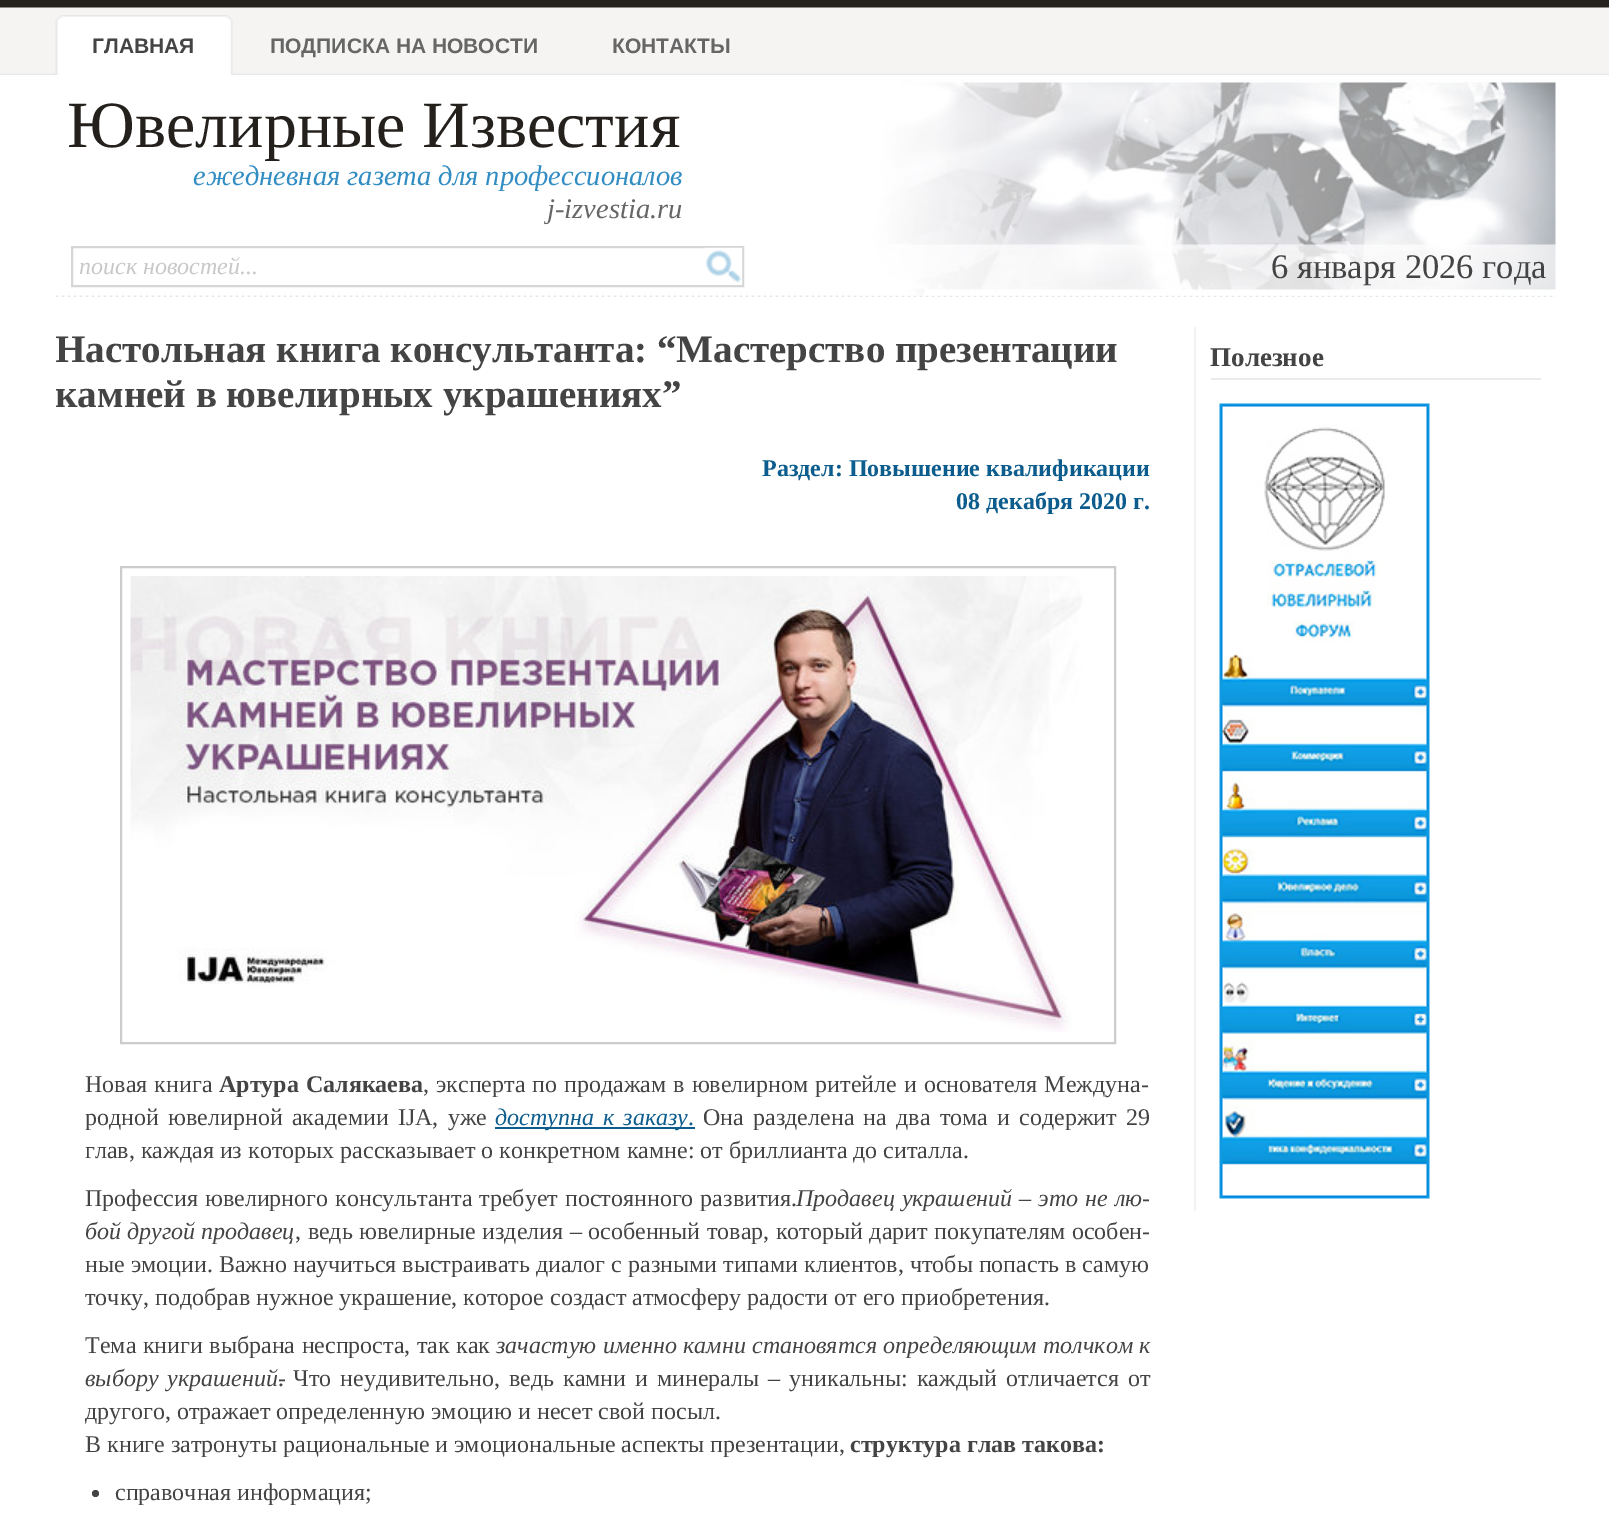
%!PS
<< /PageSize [1609 1517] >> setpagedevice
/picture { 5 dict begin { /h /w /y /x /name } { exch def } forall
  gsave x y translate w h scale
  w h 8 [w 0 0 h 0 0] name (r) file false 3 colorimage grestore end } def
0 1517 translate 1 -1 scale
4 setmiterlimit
1 setgray
0 0 1609 1517 rectfill
(img1.rgb) 0 0 1609 75 picture
(img2.rgb) 55 15 17 60 picture
(img3.rgb) 72 15 161 60 picture
/LiberationSans-Bold [21 0 0 -21 0 0] selectfont
0.267 setgray
92 53 moveto (ГЛАВНАЯ) show
0.4 setgray
270 53 moveto (ПОДПИСКА НА НОВОСТИ) show
612 53 moveto (КОНТАКТЫ) show
/LiberationSerif-Regular [66 0 0 -66 0 0] selectfont
0.141 0.129 0.114 setrgbcolor
67 147 moveto (Ювелирные Известия) show
/LiberationSerif-Italic [28.5 0 0 -28.5 0 0] selectfont
0.196 0.553 0.765 setrgbcolor
193 185 moveto (ежедневная газета для профессионалов) show
0.4 setgray
547 218 moveto (j-izvestia.ru) show
0.839 setgray
2 setlinewidth
72 247 671 39 rectstroke
/LiberationSerif-Italic [24 0 0 -24 0 0] selectfont
0.784 setgray
79 274 moveto (поиск новостей...) show
(img4.rgb) 705 247 38 38 picture
(img6.rgb) 55 295 1501 2 picture
(img5.rgb) 854 80 702 216 picture
/LiberationSerif-Regular [34.5 0 0 -34.5 0 0] selectfont
0.267 setgray
1271 278 moveto (6 января 2026 года) show
gsave
56 327 1125 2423 rectclip
/LiberationSerif-Bold [39 0 0 -39 0 0] selectfont
55 362 moveto (Настольная книга консультанта: “Мастерство презентации) show
55 407 moveto (камней в ювелирных украшениях”) show
grestore
/LiberationSerif-Bold [24 0 0 -24 0 0] selectfont
0.047 0.365 0.553 setrgbcolor
762 476 moveto (Раздел: Повышение квалификации) show
956 509 moveto (08 декабря 2020 г.) show
0.8 setgray
121 567 994 476 rectstroke
(img7.rgb) 130 576 953 456 picture
/LiberationSerif-Regular [24 0 0 -24 0 0] selectfont
0.267 setgray
85 1092 moveto 1 0 32 (Новая книга) widthshow
/LiberationSerif-Bold [24 0 0 -24 0 0] selectfont
219 1092 moveto 1 0 32 (Артура Салякаева) widthshow
/LiberationSerif-Regular [24 0 0 -24 0 0] selectfont
423 1092 moveto 1 0 32 (, эксперта по продажам в ювелирном ритейле и основателя Междуна-) widthshow
85 1125 moveto 3.25 0 32 (родной ювелирной академии IJA, уже) widthshow
0.047 0.365 0.553 setrgbcolor
495 1127 200 2 rectfill
/LiberationSerif-Italic [24 0 0 -24 0 0] selectfont
495 1125 moveto 3.25 0 32 (доступна к заказу) widthshow
/LiberationSerif-Regular [24 0 0 -24 0 0] selectfont
688 1125 moveto (.) show
0.267 setgray
703 1125 moveto 3.25 0 32 (Она разделена на два тома и содержит 29) widthshow
85 1158 moveto (глав, каждая из которых рассказывает о конкретном камне: от бриллианта до ситалла.) show
85 1206 moveto 1 0 32 (Профессия ювелирного консультанта требует постоянного развития.) widthshow
/LiberationSerif-Italic [24 0 0 -24 0 0] selectfont
796 1206 moveto 1 0 32 (Продавец украшений – это не лю-) widthshow
85 1239 moveto (бой другой продавец) show
/LiberationSerif-Regular [24 0 0 -24 0 0] selectfont
295 1239 moveto 0.5 0 32 (, ведь ювелирные изделия – особенный товар, который дарит покупателям особен-) widthshow
85 1272 moveto (ные эмоции. Важно научиться выстраивать диалог с разными типами клиентов, чтобы попасть в самую) show
85 1305 moveto (точку, подобрав нужное украшение, которое создаст атмосферу радости от его приобретения.) show
85 1353 moveto 0.5 0 32 (Тема книги выбрана неспроста, так как) widthshow
/LiberationSerif-Italic [24 0 0 -24 0 0] selectfont
496 1353 moveto 0.5 0 32 (зачастую именно камни становятся определяющим толчком к) widthshow
85 1386 moveto 3 0 32 (выбору украшений-) widthshow
/LiberationSerif-Regular [24 0 0 -24 0 0] selectfont
278 1386 moveto 3 0 32 (. Что неудивительно, ведь камни и минералы – уникальны: каждый отличается от) widthshow
85 1419 moveto (другого, отражает определенную эмоцию и несет свой посыл.) show
85 1452 moveto (В книге затронуты рациональные и эмоциональные аспекты презентации,) show
/LiberationSerif-Bold [24 0 0 -24 0 0] selectfont
850 1452 moveto (структура глав такова:) show
newpath 95.5 1493.5 3.5 0 360 arc closepath fill
/LiberationSerif-Regular [24 0 0 -24 0 0] selectfont
115 1500 moveto (справочная информация;) show
0.953 0.945 0.945 setrgbcolor
1194 327 2 884 rectfill
0.922 setgray
1211 378 330 2 rectfill
/LiberationSerif-Bold [27 0 0 -27 0 0] selectfont
0.267 setgray
1210 366 moveto (Полезное) show
(img8.rgb) 1219 403 211 796 picture
showpage
